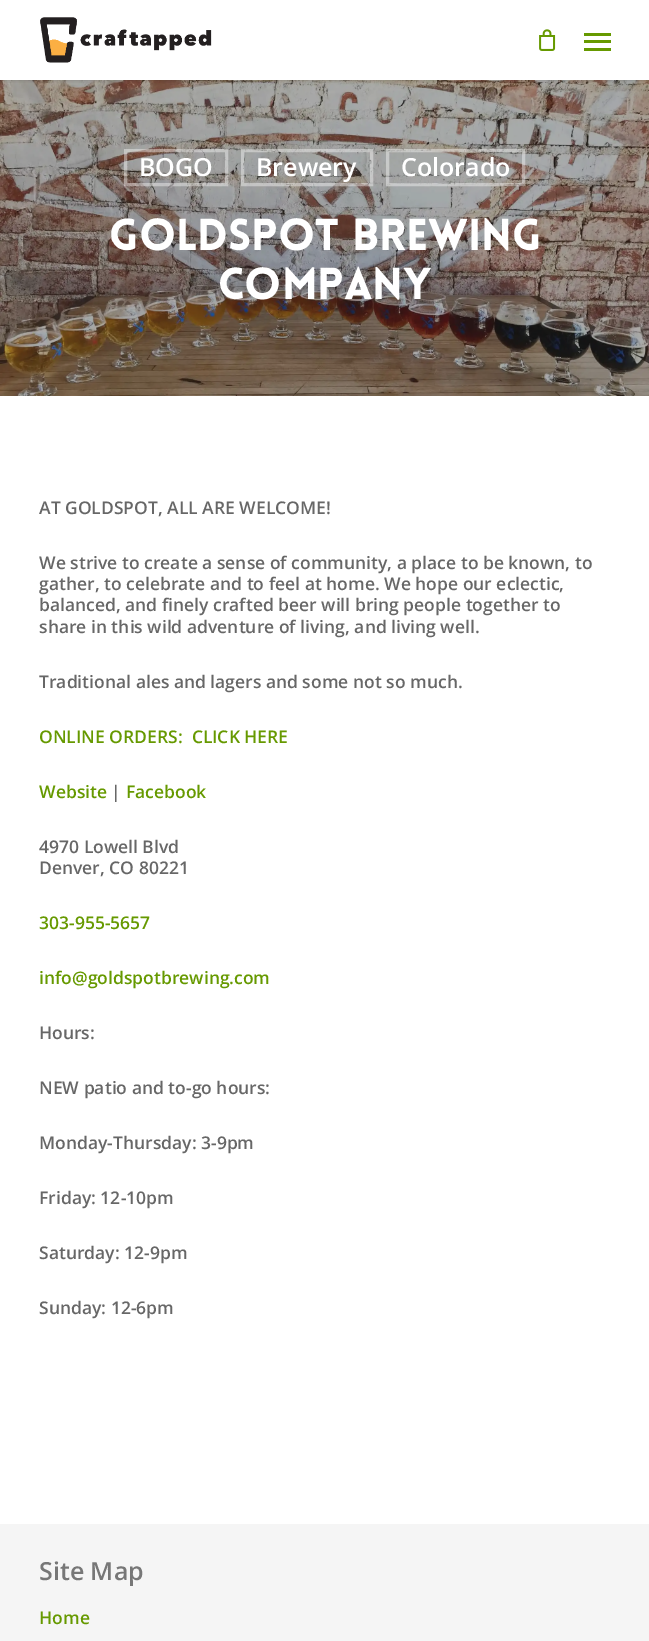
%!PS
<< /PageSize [649 1641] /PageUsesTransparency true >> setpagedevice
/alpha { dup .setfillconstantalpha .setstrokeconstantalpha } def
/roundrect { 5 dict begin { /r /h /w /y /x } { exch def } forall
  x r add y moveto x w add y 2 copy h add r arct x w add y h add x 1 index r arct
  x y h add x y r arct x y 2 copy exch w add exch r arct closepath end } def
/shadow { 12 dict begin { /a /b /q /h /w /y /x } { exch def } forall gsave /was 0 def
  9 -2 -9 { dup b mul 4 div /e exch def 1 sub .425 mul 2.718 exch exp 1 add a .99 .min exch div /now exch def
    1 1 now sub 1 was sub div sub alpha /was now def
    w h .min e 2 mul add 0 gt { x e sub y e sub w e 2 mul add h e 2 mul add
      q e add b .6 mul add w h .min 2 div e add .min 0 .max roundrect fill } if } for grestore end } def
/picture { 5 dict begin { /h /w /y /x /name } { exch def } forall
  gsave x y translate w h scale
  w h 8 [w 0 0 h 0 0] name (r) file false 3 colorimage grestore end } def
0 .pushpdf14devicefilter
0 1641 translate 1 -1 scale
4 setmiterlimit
1 setgray
0 0 649 1641 rectfill
(img3.rgb) 0 80 649 316 picture
gsave
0 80 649 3 rectclip
0 setgray
0 0 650 80 0 2 0.22 shadow
grestore
(img1.rgb) 40 17 172 46 picture
(img2.rgb) 539 29 17 22 picture
0.4 0.6 0 setrgbcolor
584 33 27 3 rectfill
584 48 27 3 rectfill
584 40 27 3 rectfill
0.4 alpha
1 setgray
3 setlinewidth
125.5 150.5 101 34 rectstroke
/OpenSans-SemiBold [25 0 0 -25 0 0] selectfont
1 alpha
139 176 moveto (BOGO) show
0.4 alpha
242.5 150.5 129 34 rectstroke
1 alpha
256 176 moveto (Brewery) show
0.4 alpha
387.5 150.5 136 34 rectstroke
1 alpha
401 176 moveto (Colorado) show
/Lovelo-Black [43.9 0 0 -43.9 0 0] selectfont
109 250 moveto (Goldspot Brewing) show
218 299 moveto (Company) show
/OpenSans-SemiBold [17.5 0 0 -17.5 0 0] selectfont
0.404 setgray
39 514 moveto (AT GOLDSPOT, ALL ARE WELCOME!) show
39 569 moveto (We strive to create a sense of community, a place to be known, to) show
39 590 moveto (gather, to celebrate and to feel at home. We hope our eclectic,) show
39 611 moveto (balanced, and finely crafted beer will bring people together to) show
39 633 moveto (share in this wild adventure of living, and living well.) show
39 688 moveto (Traditional ales and lagers and some not so much.) show
0.4 0.6 0 setrgbcolor
39 743 moveto (ONLINE ORDERS:  CLICK HERE) show
39 798 moveto (Website) show
0.404 setgray
111 798 moveto (|) show
0.4 0.6 0 setrgbcolor
126 798 moveto (Facebook) show
0.404 setgray
39 853 moveto (4970 Lowell Blvd) show
39 874 moveto (Denver, CO 80221) show
0.4 0.6 0 setrgbcolor
39 929 moveto (303-955-5657) show
39 984 moveto (info@goldspotbrewing.com) show
0.404 setgray
39 1039 moveto (Hours:) show
39 1094 moveto (NEW patio and to-go hours:) show
39 1149 moveto (Monday-Thursday: 3-9pm) show
39 1204 moveto (Friday: 12-10pm) show
39 1259 moveto (Saturday: 12-9pm) show
39 1314 moveto (Sunday: 12-6pm) show
0.961 setgray
0 1524 649 117 rectfill
/OpenSans-SemiBold [25 0 0 -25 0 0] selectfont
0.467 setgray
39 1580 moveto (Site Map) show
/OpenSans-SemiBold [17.5 0 0 -17.5 0 0] selectfont
0.4 0.6 0 setrgbcolor
39 1624 moveto (Home) show
.poppdf14devicefilter showpage
